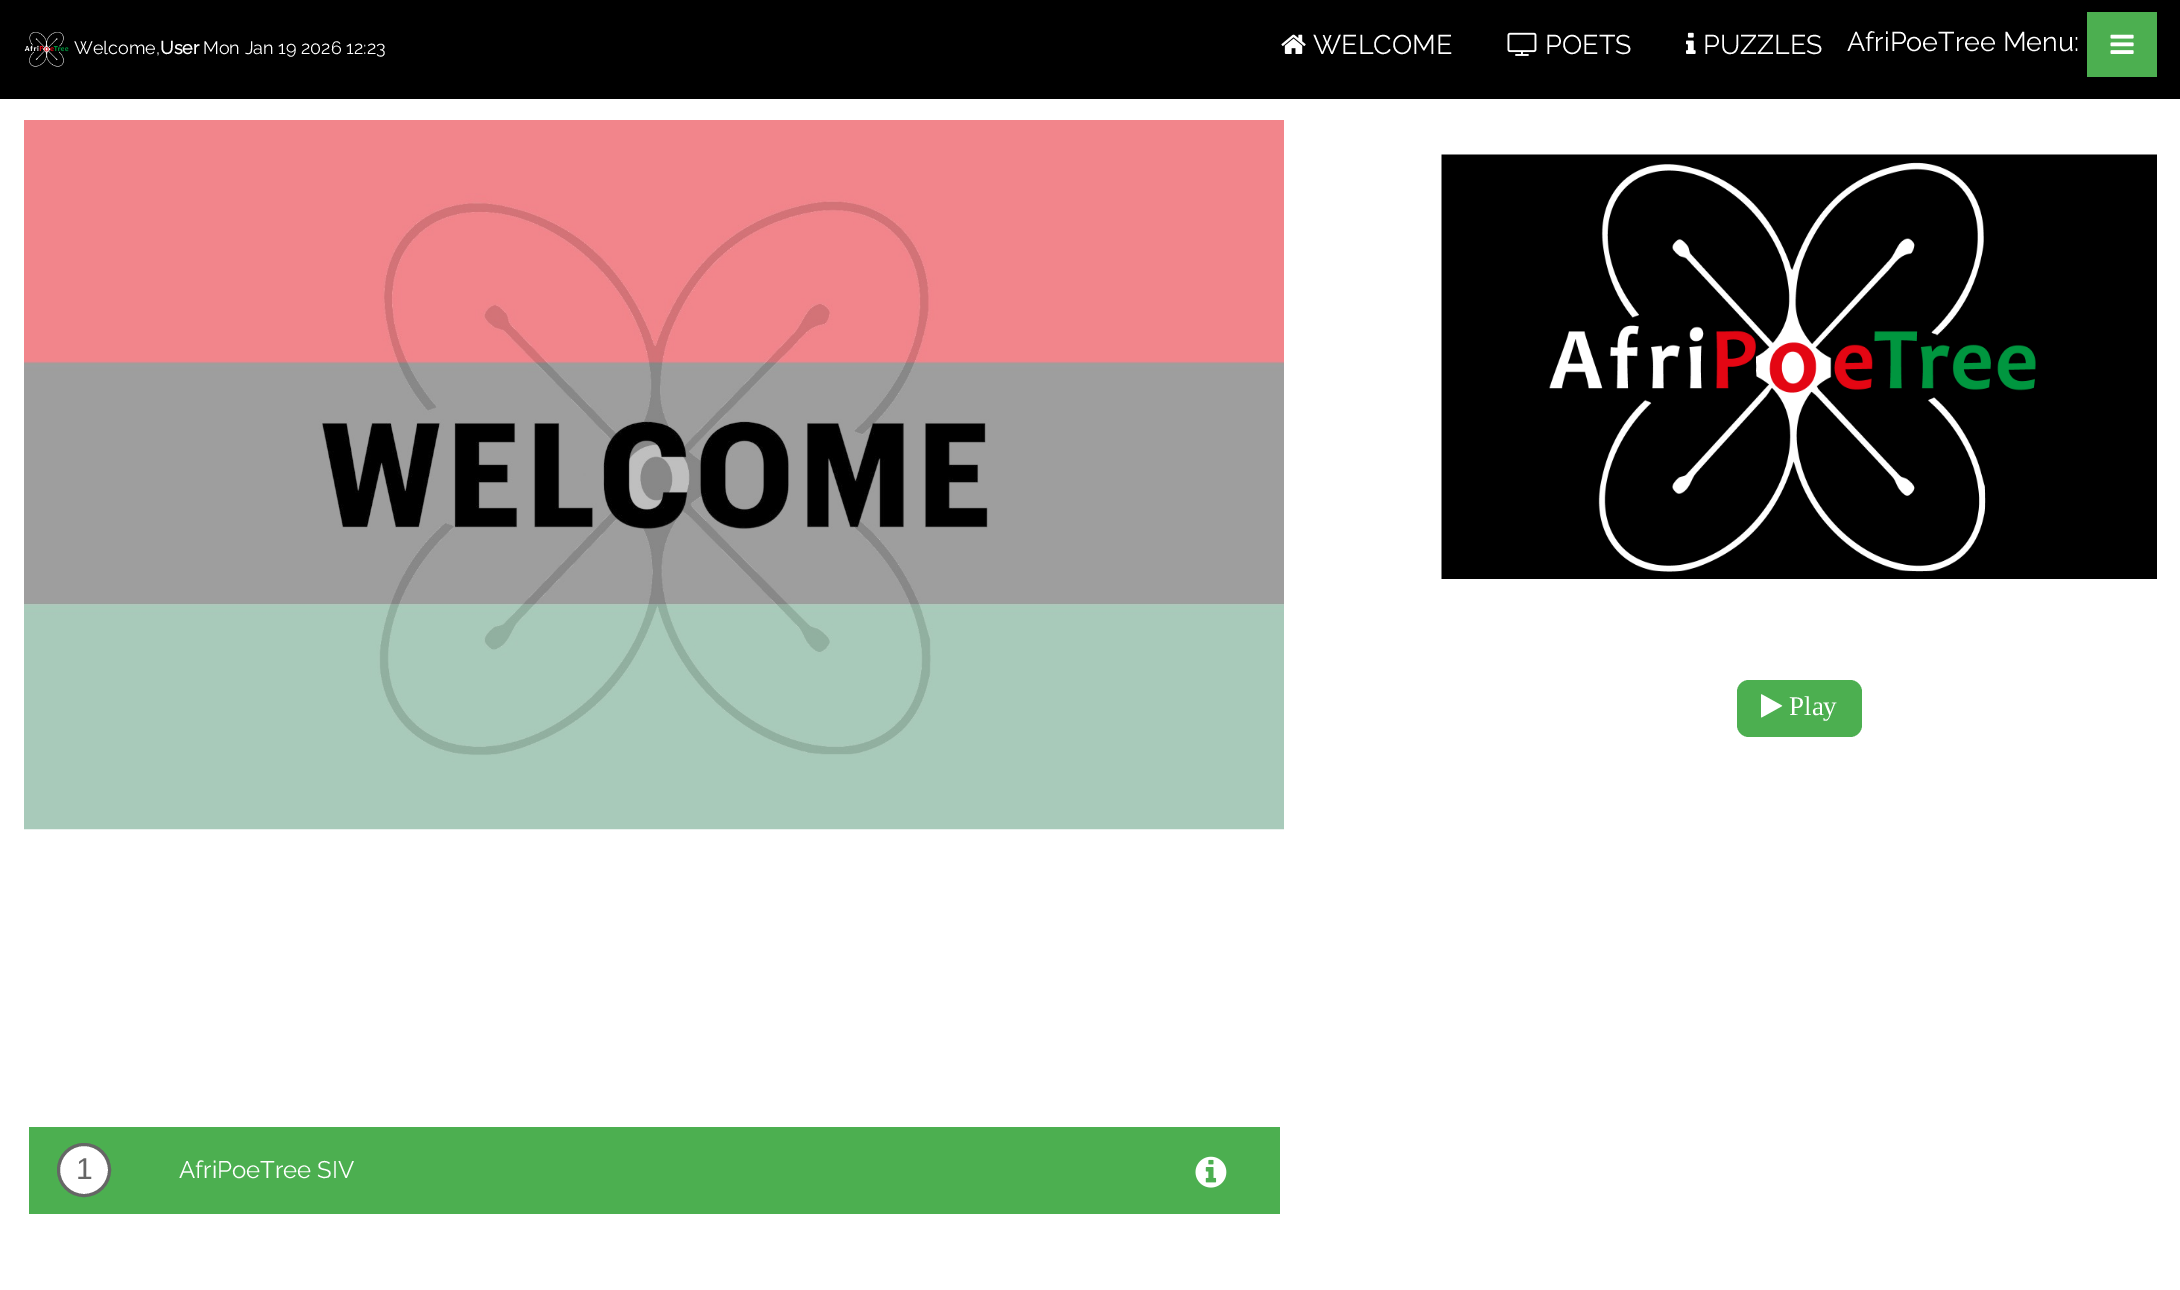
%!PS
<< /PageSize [2180 1290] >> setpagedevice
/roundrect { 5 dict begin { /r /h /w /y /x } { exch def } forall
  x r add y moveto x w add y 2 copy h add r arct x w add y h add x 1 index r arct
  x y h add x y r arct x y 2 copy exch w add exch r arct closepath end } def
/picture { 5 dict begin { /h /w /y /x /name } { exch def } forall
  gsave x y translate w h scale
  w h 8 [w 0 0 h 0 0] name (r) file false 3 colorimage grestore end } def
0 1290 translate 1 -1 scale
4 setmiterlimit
1 setgray
0 0 2180 1290 rectfill
0 setgray
0 0 2180 99 rectfill
(img1.rgb) 24 32 45 35 picture
/Raleway-Thin [18 0 0 -18 0 0] selectfont
1 setgray
74 54 moveto (Welcome,) show
/Raleway-Bold [18 0 0 -18 0 0] selectfont
160 54 moveto (User) show
/Raleway-Thin [18 0 0 -18 0 0] selectfont
203 54 moveto (Mon Jan 19 2026 12:23) show
(img2.rgb) 1281 34 25 20 picture
/Raleway-Thin [27 0 0 -27 0 0] selectfont
1313 54 moveto (WELCOME) show
(img3.rgb) 1507 32 30 24 picture
1545 54 moveto (POETS) show
(img4.rgb) 1686 32 10 22 picture
1703 54 moveto (PUZZLES) show
1847 51 moveto (AfriPoeTree Menu:) show
0.298 0.686 0.314 setrgbcolor
2087 12 70 65 rectfill
(img5.rgb) 2110 34 24 20 picture
(img6.rgb) 24 120 1260 710 picture
(img7.rgb) 1441 154 716 425 picture
1737 680 125 57 12 roundrect fill
(img8.rgb) 1761 694 22 24 picture
/LiberationSerif-Regular [27 0 0 -27 0 0] selectfont
1 setgray
1789 715 moveto (Play) show
0.298 0.686 0.314 setrgbcolor
29 1127 1251 87 rectfill
1 setgray
newpath 84 1170 25.5 0 360 arc closepath gsave fill grestore
0.4 setgray
3 setlinewidth
stroke
/LiberationSans-Regular [30 0 0 -30 0 0] selectfont
76 1179 moveto (1) show
/Raleway-Thin [24 0 0 -24 0 0] selectfont
1 setgray
179 1178 moveto (AfriPoeTree SIV) show
(img9.rgb) 1195 1156 32 32 picture
showpage
